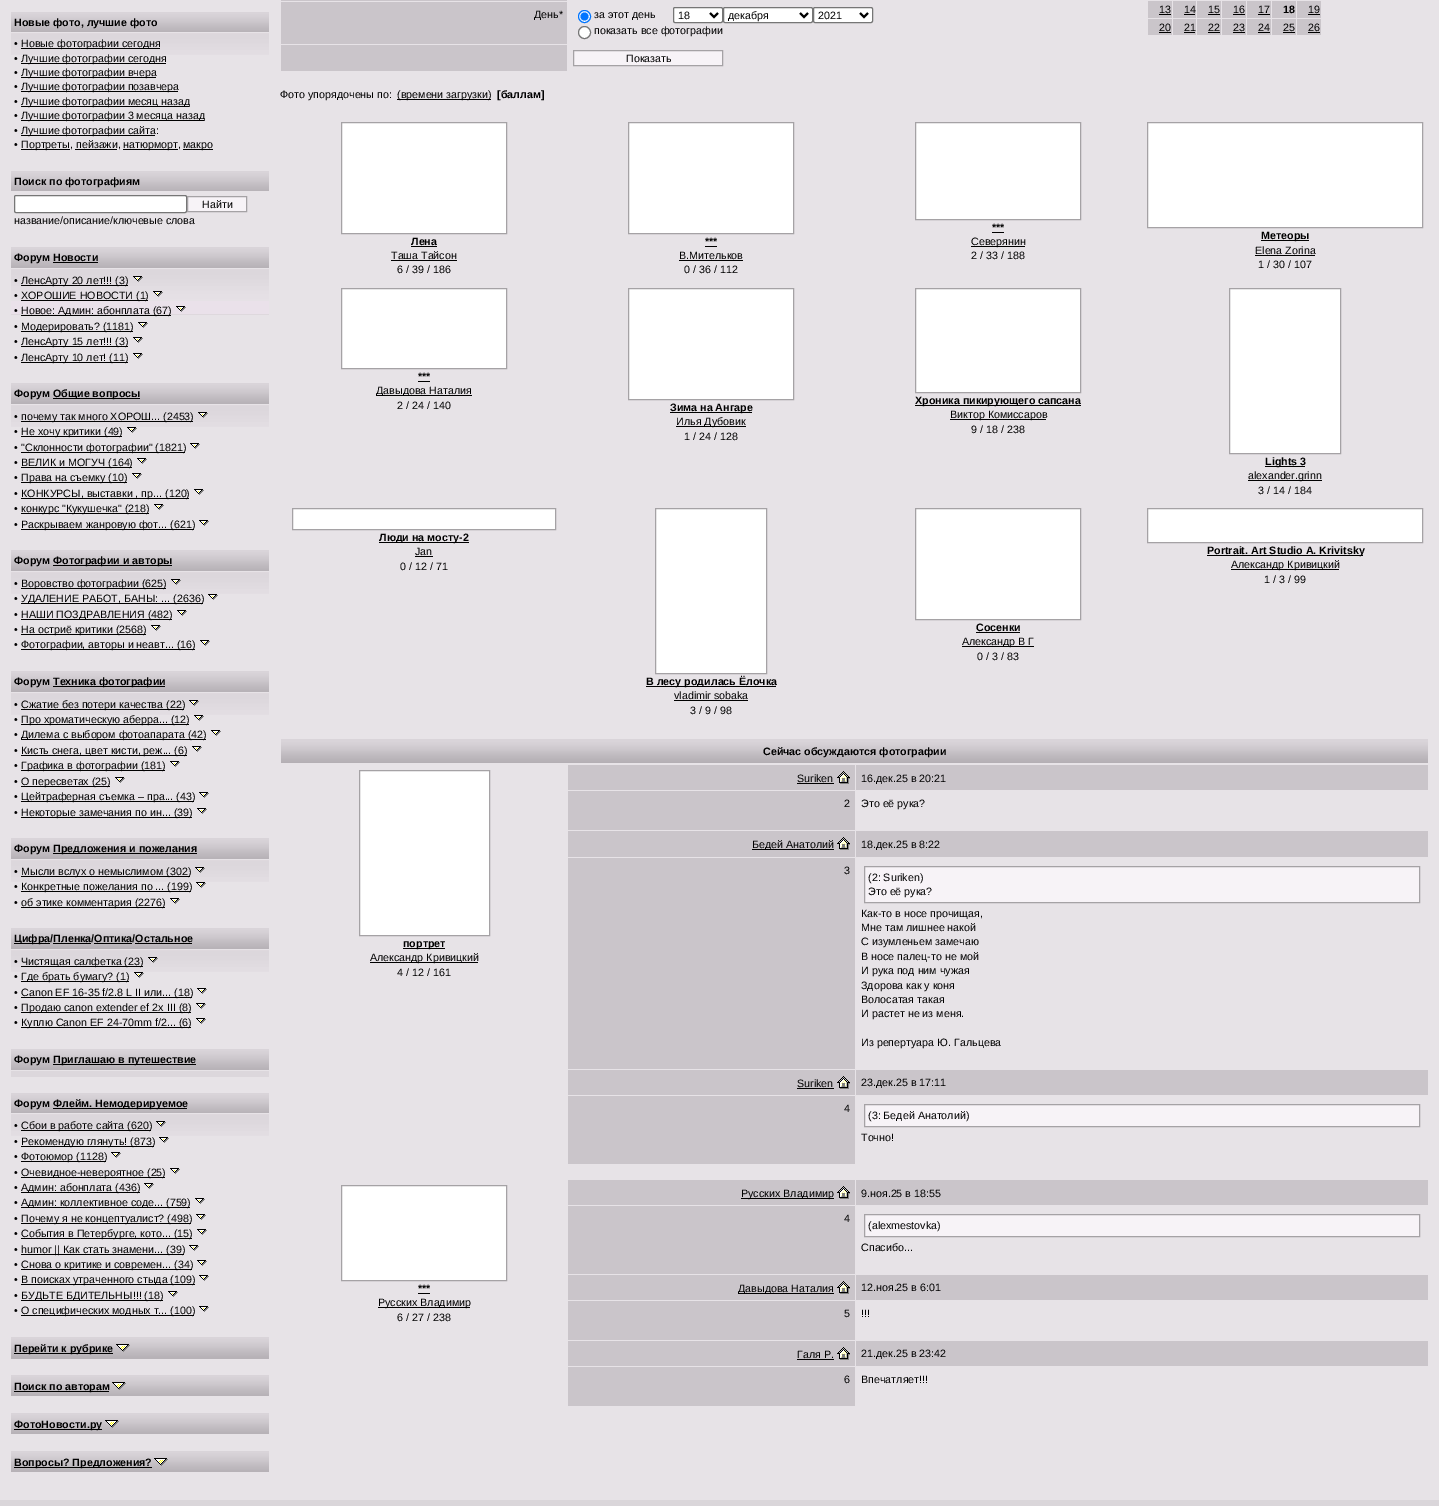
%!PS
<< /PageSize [1439 1506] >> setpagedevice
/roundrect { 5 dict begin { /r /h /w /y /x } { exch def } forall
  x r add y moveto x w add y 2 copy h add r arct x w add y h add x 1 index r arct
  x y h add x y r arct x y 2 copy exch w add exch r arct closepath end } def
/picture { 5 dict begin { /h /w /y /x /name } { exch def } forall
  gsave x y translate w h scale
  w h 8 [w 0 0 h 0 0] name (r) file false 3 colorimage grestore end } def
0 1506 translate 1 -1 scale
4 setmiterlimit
0.906 0.89 0.906 setrgbcolor
0 0 1439 1506 rectfill
(img1.rgb) 11 12 258 20 picture
/LiberationSans-Bold [10.7 0 0 -10.7 0 0] selectfont
0 setgray
14 26 moveto (Новые фото, лучшие фото) show
(img2.rgb) 11 33 258 22 picture
/LiberationSans-Regular [10.7 0 0 -10.7 0 0] selectfont
14 47 moveto (•) show
21 48 139 1 rectfill
21 47 moveto (Новые фотографии сегодня) show
14 62 moveto (•) show
21 63 145 1 rectfill
21 62 moveto (Лучшие фотографии сегодня) show
14 76 moveto (•) show
21 77 135 1 rectfill
21 76 moveto (Лучшие фотографии вчера) show
14 90 moveto (•) show
21 91 157 1 rectfill
21 90 moveto (Лучшие фотографии позавчера) show
14 105 moveto (•) show
21 106 168 1 rectfill
21 105 moveto (Лучшие фотографии месяц назад) show
14 119 moveto (•) show
21 120 183 1 rectfill
21 119 moveto (Лучшие фотографии 3 месяца назад) show
14 134 moveto (•) show
21 135 134 1 rectfill
21 134 moveto (Лучшие фотографии сайта:) show
14 148 moveto (•) show
21 149 49 1 rectfill
21 148 moveto (Портреты, пейзажи,) show
123 149 55 1 rectfill
123 148 moveto (натюрморт,) show
183 149 30 1 rectfill
183 148 moveto (макро) show
75 149 42 1 rectfill
(img1.rgb) 11 171 258 20 picture
/LiberationSans-Bold [10.7 0 0 -10.7 0 0] selectfont
14 185 moveto (Поиск по фотографиям) show
1 setgray
14.5 195.5 172 17 1.5 roundrect gsave fill grestore
0.463 setgray
stroke
0.969 0.953 0.969 setrgbcolor
newpath 187.5 196.5 moveto 246.5 196.5 lineto 246.5 211.5 lineto 187.5 211.5 lineto closepath gsave fill grestore
0.647 0.635 0.647 setrgbcolor
stroke
/LiberationSans-Regular [10.7 0 0 -10.7 0 0] selectfont
0 setgray
202 208 moveto (Найти) show
14 224 moveto (название/описание/ключевые слова) show
(img3.rgb) 11 247 258 21 picture
/LiberationSans-Bold [10.7 0 0 -10.7 0 0] selectfont
14 261 moveto (Форум Новости) show
53 262 45 1 rectfill
(img4.rgb) 11 269 258 46 picture
/LiberationSans-Regular [10.7 0 0 -10.7 0 0] selectfont
14 284 moveto (•) show
21 285 107 1 rectfill
21 284 moveto (ЛенсАрту 20 лет!!! \(3\)) show
(img5.rgb) 133 276 10 6 picture
14 299 moveto (•) show
21 300 127 1 rectfill
21 299 moveto (ХОРОШИЕ НОВОСТИ \(1\)) show
(img6.rgb) 153 291 10 6 picture
14 314 moveto (•) show
21 315 150 1 rectfill
21 314 moveto (Новое: Админ: абонплата \(67\)) show
(img7.rgb) 176 306 10 6 picture
14 330 moveto (•) show
21 331 112 1 rectfill
21 330 moveto (Модерировать? \(1181\)) show
(img8.rgb) 138 322 10 6 picture
14 345 moveto (•) show
21 346 107 1 rectfill
21 345 moveto (ЛенсАрту 15 лет!!! \(3\)) show
(img8.rgb) 133 337 10 6 picture
14 361 moveto (•) show
21 362 107 1 rectfill
21 361 moveto (ЛенсАрту 10 лет! \(11\)) show
(img8.rgb) 133 353 10 6 picture
(img3.rgb) 11 383 258 21 picture
/LiberationSans-Bold [10.7 0 0 -10.7 0 0] selectfont
14 397 moveto (Форум) show
53 398 87 1 rectfill
53 397 moveto (Общие вопросы) show
(img2.rgb) 11 405 258 22 picture
/LiberationSans-Regular [10.7 0 0 -10.7 0 0] selectfont
14 420 moveto (•) show
21 421 172 1 rectfill
21 420 moveto (почему так много ХОРОШ... \(2453\)) show
(img5.rgb) 198 412 10 6 picture
14 435 moveto (•) show
21 436 101 1 rectfill
21 435 moveto (Не хочу критики \(49\)) show
(img8.rgb) 127 427 10 6 picture
14 451 moveto (•) show
21 452 164 1 rectfill
21 451 moveto ("Склонности фотографии" \(1821\)) show
(img8.rgb) 190 443 10 6 picture
14 466 moveto (•) show
21 467 111 1 rectfill
21 466 moveto (ВЕЛИК и МОГУЧ \(164\)) show
(img8.rgb) 137 458 10 6 picture
14 481 moveto (•) show
21 482 106 1 rectfill
21 481 moveto (Права на съемку \(10\)) show
(img8.rgb) 132 473 10 6 picture
14 497 moveto (•) show
21 498 168 1 rectfill
21 497 moveto (КОНКУРСЫ, выставки , пр... \(120\)) show
(img8.rgb) 194 489 10 6 picture
14 512 moveto (•) show
21 513 128 1 rectfill
21 512 moveto (конкурс "Кукушечка" \(218\)) show
(img8.rgb) 154 504 10 6 picture
14 528 moveto (•) show
21 529 173 1 rectfill
21 528 moveto (Раскрываем жанровую фот... \(621\)) show
(img8.rgb) 199 520 10 6 picture
(img3.rgb) 11 550 258 21 picture
/LiberationSans-Bold [10.7 0 0 -10.7 0 0] selectfont
14 564 moveto (Форум) show
53 565 119 1 rectfill
53 564 moveto (Фотографии и авторы) show
(img2.rgb) 11 572 258 22 picture
/LiberationSans-Regular [10.7 0 0 -10.7 0 0] selectfont
14 587 moveto (•) show
21 588 145 1 rectfill
21 587 moveto (Воровство фотографии \(625\)) show
(img5.rgb) 171 579 10 6 picture
14 602 moveto (•) show
21 603 182 1 rectfill
21 602 moveto (УДАЛЕНИЕ РАБОТ, БАНЫ: ... \(2636\)) show
(img8.rgb) 208 594 10 6 picture
14 618 moveto (•) show
21 619 151 1 rectfill
21 618 moveto (НАШИ ПОЗДРАВЛЕНИЯ \(482\)) show
(img8.rgb) 177 610 10 6 picture
14 633 moveto (•) show
21 634 125 1 rectfill
21 633 moveto (На остриё критики \(2568\)) show
(img8.rgb) 151 625 10 6 picture
14 648 moveto (•) show
21 649 174 1 rectfill
21 648 moveto (Фотографии, авторы и неавт... \(16\)) show
(img8.rgb) 200 640 10 6 picture
(img3.rgb) 11 671 258 21 picture
/LiberationSans-Bold [10.7 0 0 -10.7 0 0] selectfont
14 685 moveto (Форум) show
53 686 112 1 rectfill
53 685 moveto (Техника фотографии) show
(img2.rgb) 11 693 258 22 picture
/LiberationSans-Regular [10.7 0 0 -10.7 0 0] selectfont
14 708 moveto (•) show
21 709 163 1 rectfill
21 708 moveto (Сжатие без потери качества \(22\)) show
(img5.rgb) 189 700 10 6 picture
14 723 moveto (•) show
21 724 168 1 rectfill
21 723 moveto (Про хроматическую аберра... \(12\)) show
(img8.rgb) 194 715 10 6 picture
14 738 moveto (•) show
21 739 185 1 rectfill
21 738 moveto (Дилема с выбором фотоапарата \(42\)) show
(img8.rgb) 211 730 10 6 picture
14 754 moveto (•) show
21 755 166 1 rectfill
21 754 moveto (Кисть снега, цвет кисти, реж... \(6\)) show
(img8.rgb) 192 746 10 6 picture
14 769 moveto (•) show
21 770 144 1 rectfill
21 769 moveto (Графика в фотографии \(181\)) show
(img8.rgb) 170 761 10 6 picture
14 785 moveto (• О) show
21 786 89 1 rectfill
32 785 moveto (пересветах \(25\)) show
(img8.rgb) 115 777 10 6 picture
14 800 moveto (•) show
21 801 173 1 rectfill
21 800 moveto (Цейтраферная съемка – пра... \(43\)) show
(img8.rgb) 199 792 10 6 picture
14 816 moveto (•) show
21 817 171 1 rectfill
21 816 moveto (Некоторые замечания по ин... \(39\)) show
(img8.rgb) 197 808 10 6 picture
(img3.rgb) 11 838 258 21 picture
/LiberationSans-Bold [10.7 0 0 -10.7 0 0] selectfont
14 852 moveto (Форум) show
53 853 144 1 rectfill
53 852 moveto (Предложения и пожелания) show
(img2.rgb) 11 860 258 22 picture
/LiberationSans-Regular [10.7 0 0 -10.7 0 0] selectfont
14 875 moveto (•) show
21 876 169 1 rectfill
21 875 moveto (Мысли вслух о немыслимом \(302\)) show
(img5.rgb) 195 867 10 6 picture
14 890 moveto (•) show
21 891 170 1 rectfill
21 890 moveto (Конкретные пожелания по ... \(199\)) show
(img8.rgb) 196 882 10 6 picture
14 906 moveto (•) show
21 907 144 1 rectfill
21 906 moveto (об этике комментария \(2276\)) show
(img8.rgb) 170 898 10 6 picture
(img3.rgb) 11 928 258 21 picture
14 943 36 1 rectfill
/LiberationSans-Bold [10.7 0 0 -10.7 0 0] selectfont
14 942 moveto (Цифра/Пленка/Оптика/Остальное) show
53 943 38 1 rectfill
94 943 38 1 rectfill
135 943 57 1 rectfill
(img2.rgb) 11 950 258 22 picture
/LiberationSans-Regular [10.7 0 0 -10.7 0 0] selectfont
14 965 moveto (•) show
21 966 122 1 rectfill
21 965 moveto (Чистящая салфетка \(23\)) show
(img5.rgb) 148 957 10 6 picture
14 980 moveto (•) show
21 981 108 1 rectfill
21 980 moveto (Где брать бумагу? \(1\)) show
(img8.rgb) 134 972 10 6 picture
14 996 moveto (•) show
21 997 171 1 rectfill
21 996 moveto (Canon EF 16-35 f/2.8 L II или... \(18\)) show
(img8.rgb) 197 988 10 6 picture
14 1011 moveto (•) show
21 1012 170 1 rectfill
21 1011 moveto (Продаю canon extender ef 2x III \(8\)) show
(img8.rgb) 196 1003 10 6 picture
14 1026 moveto (•) show
21 1027 170 1 rectfill
21 1026 moveto (Куплю Canon EF 24-70mm f/2... \(6\)) show
(img8.rgb) 196 1018 10 6 picture
(img3.rgb) 11 1049 258 21 picture
/LiberationSans-Bold [10.7 0 0 -10.7 0 0] selectfont
14 1063 moveto (Форум) show
53 1064 143 1 rectfill
53 1063 moveto (Приглашаю в путешествие) show
0.863 0.843 0.863 setrgbcolor
11 1071 258 6 rectfill
(img1.rgb) 11 1093 258 20 picture
0 setgray
14 1107 moveto (Форум) show
53 1108 134 1 rectfill
53 1107 moveto (Флейм. Немодерируемое) show
(img2.rgb) 11 1114 258 22 picture
/LiberationSans-Regular [10.7 0 0 -10.7 0 0] selectfont
14 1129 moveto (•) show
21 1130 130 1 rectfill
21 1129 moveto (Сбои в работе сайта \(620\)) show
(img5.rgb) 156 1121 10 6 picture
14 1145 moveto (•) show
21 1146 133 1 rectfill
21 1145 moveto (Рекомендую глянуть! \(873\)) show
(img8.rgb) 159 1137 10 6 picture
14 1160 moveto (•) show
21 1161 85 1 rectfill
21 1160 moveto (Фотоюмор \(1128\)) show
(img8.rgb) 111 1152 10 6 picture
14 1176 moveto (•) show
21 1177 144 1 rectfill
21 1176 moveto (Очевидное-невероятное \(25\)) show
(img8.rgb) 170 1168 10 6 picture
14 1191 moveto (•) show
21 1192 119 1 rectfill
21 1191 moveto (Админ: абонплата \(436\)) show
(img8.rgb) 144 1183 10 6 picture
14 1206 moveto (•) show
21 1207 169 1 rectfill
21 1206 moveto (Админ: коллективное соде... \(759\)) show
(img8.rgb) 195 1198 10 6 picture
14 1222 moveto (•) show
21 1223 170 1 rectfill
21 1222 moveto (Почему я не концептуалист? \(498\)) show
(img8.rgb) 196 1214 10 6 picture
14 1237 moveto (•) show
21 1238 171 1 rectfill
21 1237 moveto (События в Петербурге, кото... \(15\)) show
(img8.rgb) 197 1229 10 6 picture
14 1253 moveto (•) show
21 1254 163 1 rectfill
21 1253 moveto (humor || Как стать знамени... \(39\)) show
(img8.rgb) 189 1245 10 6 picture
14 1268 moveto (•) show
21 1269 171 1 rectfill
21 1268 moveto (Снова о критике и современ... \(34\)) show
(img8.rgb) 197 1260 10 6 picture
14 1283 moveto (•) show
21 1284 174 1 rectfill
21 1283 moveto (В поисках утраченного стыда \(109\)) show
(img8.rgb) 199 1275 10 6 picture
14 1299 moveto (•) show
21 1300 142 1 rectfill
21 1299 moveto (БУДЬТЕ БДИТЕЛЬНЫ!!! \(18\)) show
(img8.rgb) 168 1291 10 6 picture
14 1314 moveto (•) show
21 1315 173 1 rectfill
21 1314 moveto (О специфических модных т... \(100\)) show
(img8.rgb) 199 1306 10 6 picture
(img9.rgb) 11 1337 258 22 picture
14 1353 99 1 rectfill
/LiberationSans-Bold [10.7 0 0 -10.7 0 0] selectfont
14 1352 moveto (Перейти к рубрике) show
(img10.rgb) 116 1344 14 8 picture
(img3.rgb) 11 1375 258 21 picture
14 1391 95 1 rectfill
14 1390 moveto (Поиск по авторам) show
(img10.rgb) 112 1382 14 8 picture
(img3.rgb) 11 1413 258 21 picture
14 1429 88 1 rectfill
14 1428 moveto (ФотоНовости.ру) show
(img10.rgb) 105 1420 14 8 picture
(img3.rgb) 11 1451 258 21 picture
14 1467 138 1 rectfill
14 1466 moveto (Вопросы? Предложения?) show
(img10.rgb) 154 1458 14 8 picture
0.792 0.773 0.792 setrgbcolor
281 2 286 42 rectfill
/LiberationSans-Regular [10.7 0 0 -10.7 0 0] selectfont
0 setgray
534 18 moveto (День*) show
1 setgray
newpath 584.5 16.5 6 0 360 arc closepath gsave fill grestore
0 0.459 1 setrgbcolor
stroke
newpath 584.5 16.5 4 0 360 arc closepath fill
0 setgray
594 18 moveto (за этот день) show
1 setgray
673.5 7.5 49 15 1.5 roundrect gsave fill grestore
0.463 setgray
stroke
0 setgray
2 setlinewidth
newpath 710 13 moveto 714 17 lineto 718 13 lineto stroke
678 19 moveto (18) show
1 setgray
723.5 7.5 89 15 1.5 roundrect gsave fill grestore
0.463 setgray
1 setlinewidth
stroke
0 setgray
2 setlinewidth
newpath 800 13 moveto 804 17 lineto 808 13 lineto stroke
728 19 moveto (декабря) show
1 setgray
813.5 7.5 59 15 1.5 roundrect gsave fill grestore
0.463 setgray
1 setlinewidth
stroke
0 setgray
2 setlinewidth
newpath 860 13 moveto 864 17 lineto 868 13 lineto stroke
818 19 moveto (2021) show
1 setgray
newpath 584.5 32.5 6 0 360 arc closepath gsave fill grestore
0.463 setgray
1 setlinewidth
stroke
0 setgray
594 34 moveto (показать все фотографии) show
0.792 0.773 0.792 setrgbcolor
281 0 286 1 rectfill
1148 1 24 17 rectfill
0 setgray
1159 13 moveto (13) show
1159 14 12 1 rectfill
0.792 0.773 0.792 setrgbcolor
1173 1 23 17 rectfill
0 setgray
1184 13 moveto (14) show
1184 14 11 1 rectfill
0.792 0.773 0.792 setrgbcolor
1197 1 24 17 rectfill
0 setgray
1208 13 moveto (15) show
1208 14 12 1 rectfill
0.792 0.773 0.792 setrgbcolor
1222 1 24 17 rectfill
0 setgray
1233 13 moveto (16) show
1233 14 12 1 rectfill
0.792 0.773 0.792 setrgbcolor
1247 1 24 17 rectfill
0 setgray
1258 13 moveto (17) show
1258 14 12 1 rectfill
0.792 0.773 0.792 setrgbcolor
1272 1 24 17 rectfill
/LiberationSans-Bold [10.7 0 0 -10.7 0 0] selectfont
0 setgray
1283 13 moveto (18) show
0.792 0.773 0.792 setrgbcolor
1297 1 24 17 rectfill
/LiberationSans-Regular [10.7 0 0 -10.7 0 0] selectfont
0 setgray
1308 13 moveto (19) show
1308 14 12 1 rectfill
0.792 0.773 0.792 setrgbcolor
1148 19 24 16 rectfill
0 setgray
1159 31 moveto (20) show
1159 32 12 1 rectfill
0.792 0.773 0.792 setrgbcolor
1173 19 23 16 rectfill
0 setgray
1184 31 moveto (21) show
1184 32 11 1 rectfill
0.792 0.773 0.792 setrgbcolor
1197 19 24 16 rectfill
0 setgray
1208 31 moveto (22) show
1208 32 12 1 rectfill
0.792 0.773 0.792 setrgbcolor
1222 19 24 16 rectfill
0 setgray
1233 31 moveto (23) show
1233 32 12 1 rectfill
0.792 0.773 0.792 setrgbcolor
1247 19 24 16 rectfill
0 setgray
1258 31 moveto (24) show
1258 32 12 1 rectfill
0.792 0.773 0.792 setrgbcolor
1272 19 24 16 rectfill
0 setgray
1283 31 moveto (25) show
1283 32 12 1 rectfill
0.792 0.773 0.792 setrgbcolor
1297 19 24 16 rectfill
0 setgray
1308 31 moveto (26) show
1308 32 12 1 rectfill
0.792 0.773 0.792 setrgbcolor
281 45 286 26 rectfill
0.969 0.953 0.969 setrgbcolor
newpath 573.5 50.5 moveto 722.5 50.5 lineto 722.5 65.5 lineto 573.5 65.5 lineto closepath gsave fill grestore
0.647 0.635 0.647 setrgbcolor
stroke
0 setgray
626 62 moveto (Показать) show
280 98 moveto (Фото упорядочены по:) show
397 99 94 1 rectfill
397 98 moveto (\(времени загрузки\)) show
/LiberationSans-Bold [10.7 0 0 -10.7 0 0] selectfont
497 98 moveto ([баллам]) show
1 setgray
newpath 341.5 122.5 moveto 506.5 122.5 lineto 506.5 233.5 lineto 341.5 233.5 lineto closepath gsave fill grestore
0.647 0.635 0.647 setrgbcolor
stroke
0 setgray
411 245 moveto (Лена) show
411 246 26 1 rectfill
/LiberationSans-Regular [10.7 0 0 -10.7 0 0] selectfont
391 259 moveto (Таша Тайсон) show
391 260 66 1 rectfill
397 273 moveto (6 / 39 / 186) show
1 setgray
newpath 628.5 122.5 moveto 793.5 122.5 lineto 793.5 233.5 lineto 628.5 233.5 lineto closepath gsave fill grestore
0.647 0.635 0.647 setrgbcolor
stroke
/LiberationSans-Bold [10.7 0 0 -10.7 0 0] selectfont
0 setgray
705 245 moveto (***) show
705 246 12 1 rectfill
/LiberationSans-Regular [10.7 0 0 -10.7 0 0] selectfont
679 259 moveto (В.Мительков) show
679 260 64 1 rectfill
684 273 moveto (0 / 36 / 112) show
1 setgray
newpath 915.5 122.5 moveto 1080.5 122.5 lineto 1080.5 219.5 lineto 915.5 219.5 lineto closepath gsave fill grestore
0.647 0.635 0.647 setrgbcolor
stroke
/LiberationSans-Bold [10.7 0 0 -10.7 0 0] selectfont
0 setgray
992 231 moveto (***) show
992 232 12 1 rectfill
971 246 54 1 rectfill
/LiberationSans-Regular [10.7 0 0 -10.7 0 0] selectfont
971 245 moveto (Северянин) show
971 259 moveto (2 / 33 / 188) show
1 setgray
newpath 1147.5 122.5 moveto 1422.5 122.5 lineto 1422.5 227.5 lineto 1147.5 227.5 lineto closepath gsave fill grestore
0.647 0.635 0.647 setrgbcolor
stroke
0 setgray
1261 240 48 1 rectfill
/LiberationSans-Bold [10.7 0 0 -10.7 0 0] selectfont
1261 239 moveto (Метеоры) show
/LiberationSans-Regular [10.7 0 0 -10.7 0 0] selectfont
1255 254 moveto (Elena Zorina) show
1255 255 60 1 rectfill
1258 268 moveto (1 / 30 / 107) show
1 setgray
newpath 341.5 288.5 moveto 506.5 288.5 lineto 506.5 368.5 lineto 341.5 368.5 lineto closepath gsave fill grestore
0.647 0.635 0.647 setrgbcolor
stroke
/LiberationSans-Bold [10.7 0 0 -10.7 0 0] selectfont
0 setgray
418 380 moveto (***) show
418 381 12 1 rectfill
376 395 96 1 rectfill
/LiberationSans-Regular [10.7 0 0 -10.7 0 0] selectfont
376 394 moveto (Давыдова Наталия) show
397 409 moveto (2 / 24 / 140) show
1 setgray
newpath 628.5 288.5 moveto 793.5 288.5 lineto 793.5 399.5 lineto 628.5 399.5 lineto closepath gsave fill grestore
0.647 0.635 0.647 setrgbcolor
stroke
0 setgray
670 412 82 1 rectfill
/LiberationSans-Bold [10.7 0 0 -10.7 0 0] selectfont
670 411 moveto (Зима на Ангаре) show
676 426 70 1 rectfill
/LiberationSans-Regular [10.7 0 0 -10.7 0 0] selectfont
676 425 moveto (Илья Дубовик) show
684 440 moveto (1 / 24 / 128) show
1 setgray
newpath 915.5 288.5 moveto 1080.5 288.5 lineto 1080.5 392.5 lineto 915.5 392.5 lineto closepath gsave fill grestore
0.647 0.635 0.647 setrgbcolor
stroke
0 setgray
915 405 166 1 rectfill
/LiberationSans-Bold [10.7 0 0 -10.7 0 0] selectfont
915 404 moveto (Хроника пикирующего сапсана) show
950 419 96 1 rectfill
/LiberationSans-Regular [10.7 0 0 -10.7 0 0] selectfont
950 418 moveto (Виктор Комиссаров) show
971 433 moveto (9 / 18 / 238) show
1 setgray
newpath 1229.5 288.5 moveto 1340.5 288.5 lineto 1340.5 453.5 lineto 1229.5 453.5 lineto closepath gsave fill grestore
0.647 0.635 0.647 setrgbcolor
stroke
0 setgray
1265 466 40 1 rectfill
/LiberationSans-Bold [10.7 0 0 -10.7 0 0] selectfont
1265 465 moveto (Lights 3) show
1248 480 74 1 rectfill
/LiberationSans-Regular [10.7 0 0 -10.7 0 0] selectfont
1248 479 moveto (alexander.grinn) show
1258 494 moveto (3 / 14 / 184) show
1 setgray
newpath 292.5 508.5 moveto 555.5 508.5 lineto 555.5 529.5 lineto 292.5 529.5 lineto closepath gsave fill grestore
0.647 0.635 0.647 setrgbcolor
stroke
0 setgray
379 542 90 1 rectfill
/LiberationSans-Bold [10.7 0 0 -10.7 0 0] selectfont
379 541 moveto (Люди на мосту-2) show
/LiberationSans-Regular [10.7 0 0 -10.7 0 0] selectfont
415 555 moveto (Jan) show
415 556 18 1 rectfill
400 570 moveto (0 / 12 / 71) show
1 setgray
newpath 1147.5 508.5 moveto 1422.5 508.5 lineto 1422.5 542.5 lineto 1147.5 542.5 lineto closepath gsave fill grestore
0.647 0.635 0.647 setrgbcolor
stroke
0 setgray
1207 555 156 1 rectfill
/LiberationSans-Bold [10.7 0 0 -10.7 0 0] selectfont
1207 554 moveto (Portrait. Art Studio A. Krivitsky) show
1231 569 108 1 rectfill
/LiberationSans-Regular [10.7 0 0 -10.7 0 0] selectfont
1231 568 moveto (Александр Кривицкий) show
1264 583 moveto (1 / 3 / 99) show
1 setgray
newpath 915.5 508.5 moveto 1080.5 508.5 lineto 1080.5 619.5 lineto 915.5 619.5 lineto closepath gsave fill grestore
0.647 0.635 0.647 setrgbcolor
stroke
/LiberationSans-Bold [10.7 0 0 -10.7 0 0] selectfont
0 setgray
976 631 moveto (Сосенки) show
976 632 44 1 rectfill
962 646 72 1 rectfill
/LiberationSans-Regular [10.7 0 0 -10.7 0 0] selectfont
962 645 moveto (Александр В Г) show
977 660 moveto (0 / 3 / 83) show
1 setgray
newpath 655.5 508.5 moveto 766.5 508.5 lineto 766.5 673.5 lineto 655.5 673.5 lineto closepath gsave fill grestore
0.647 0.635 0.647 setrgbcolor
stroke
0 setgray
646 686 130 1 rectfill
/LiberationSans-Bold [10.7 0 0 -10.7 0 0] selectfont
646 685 moveto (В лесу родилась Ёлочка) show
/LiberationSans-Regular [10.7 0 0 -10.7 0 0] selectfont
674 699 moveto (vladimir sobaka) show
674 700 74 1 rectfill
690 714 moveto (3 / 9 / 98) show
(img11.rgb) 281 739 1147 24 picture
/LiberationSans-Bold [10.7 0 0 -10.7 0 0] selectfont
763 755 moveto (Сейчас обсуждаются фотографии) show
0.792 0.773 0.792 setrgbcolor
568 765 287 25 rectfill
/LiberationSans-Regular [10.7 0 0 -10.7 0 0] selectfont
0 setgray
797 782 moveto (Suriken) show
797 783 37 1 rectfill
(img12.rgb) 837 771 13 13 picture
0.792 0.773 0.792 setrgbcolor
856 765 572 25 rectfill
0 setgray
861 782 moveto (16.дек.25 в 20:21) show
1 setgray
newpath 359.5 770.5 moveto 489.5 770.5 lineto 489.5 935.5 lineto 359.5 935.5 lineto closepath gsave fill grestore
0.647 0.635 0.647 setrgbcolor
stroke
0 setgray
403 948 42 1 rectfill
/LiberationSans-Bold [10.7 0 0 -10.7 0 0] selectfont
403 947 moveto (портрет) show
370 962 108 1 rectfill
/LiberationSans-Regular [10.7 0 0 -10.7 0 0] selectfont
370 961 moveto (Александр Кривицкий) show
397 976 moveto (4 / 12 / 161) show
0.792 0.773 0.792 setrgbcolor
568 791 287 39 rectfill
0 setgray
844 807 moveto (2) show
861 807 moveto (Это её рука?) show
0.792 0.773 0.792 setrgbcolor
568 831 287 26 rectfill
0 setgray
752 849 82 1 rectfill
752 848 moveto (Бедей Анатолий) show
(img12.rgb) 837 837 13 13 picture
0.792 0.773 0.792 setrgbcolor
856 831 572 26 rectfill
0 setgray
861 848 moveto (18.дек.25 в 8:22) show
0.792 0.773 0.792 setrgbcolor
568 858 287 211 rectfill
0 setgray
844 874 moveto (3) show
0.969 0.953 0.969 setrgbcolor
newpath 864.5 866.5 moveto 1419.5 866.5 lineto 1419.5 902.5 lineto 864.5 902.5 lineto closepath gsave fill grestore
0.647 0.635 0.647 setrgbcolor
stroke
0 setgray
868 881 moveto (\(2: Suriken\)) show
868 895 moveto (Это её рука?) show
861 917 moveto (Как-то в носе прочищая,) show
861 931 moveto (Мне там лишнее накой) show
861 945 moveto (С изумленьем замечаю) show
861 960 moveto (В носе палец-то не мой) show
861 974 moveto (И рука под ним чужая) show
861 989 moveto (Здорова как у коня) show
861 1003 moveto (Волосатая такая) show
861 1017 moveto (И растет не из меня.) show
861 1046 moveto (Из репертуара Ю. Гальцева) show
0.792 0.773 0.792 setrgbcolor
568 1070 287 25 rectfill
0 setgray
797 1087 moveto (Suriken) show
797 1088 37 1 rectfill
(img12.rgb) 837 1076 13 13 picture
0.792 0.773 0.792 setrgbcolor
856 1070 572 25 rectfill
0 setgray
861 1086 moveto (23.дек.25 в 17:11) show
0.792 0.773 0.792 setrgbcolor
568 1096 287 68 rectfill
0 setgray
844 1112 moveto (4) show
0.969 0.953 0.969 setrgbcolor
newpath 864.5 1104.5 moveto 1419.5 1104.5 lineto 1419.5 1126.5 lineto 864.5 1126.5 lineto closepath gsave fill grestore
0.647 0.635 0.647 setrgbcolor
stroke
0 setgray
868 1119 moveto (\(3: Бедей Анатолий\)) show
861 1141 moveto (Точно!) show
0.792 0.773 0.792 setrgbcolor
568 1180 287 25 rectfill
0 setgray
741 1198 93 1 rectfill
741 1197 moveto (Русских Владимир) show
(img12.rgb) 837 1186 13 13 picture
0.792 0.773 0.792 setrgbcolor
856 1180 572 25 rectfill
0 setgray
861 1197 moveto (9.ноя.25 в 18:55) show
1 setgray
newpath 341.5 1185.5 moveto 506.5 1185.5 lineto 506.5 1280.5 lineto 341.5 1280.5 lineto closepath gsave fill grestore
0.647 0.635 0.647 setrgbcolor
stroke
/LiberationSans-Bold [10.7 0 0 -10.7 0 0] selectfont
0 setgray
418 1292 moveto (***) show
418 1293 12 1 rectfill
378 1307 92 1 rectfill
/LiberationSans-Regular [10.7 0 0 -10.7 0 0] selectfont
378 1306 moveto (Русских Владимир) show
397 1321 moveto (6 / 27 / 238) show
0.792 0.773 0.792 setrgbcolor
568 1206 287 68 rectfill
0 setgray
844 1222 moveto (4) show
0.969 0.953 0.969 setrgbcolor
newpath 864.5 1214.5 moveto 1419.5 1214.5 lineto 1419.5 1236.5 lineto 864.5 1236.5 lineto closepath gsave fill grestore
0.647 0.635 0.647 setrgbcolor
stroke
0 setgray
868 1229 moveto (\(alexmestovka\)) show
861 1251 moveto (Спасибо...) show
0.792 0.773 0.792 setrgbcolor
568 1275 287 25 rectfill
0 setgray
738 1293 96 1 rectfill
738 1292 moveto (Давыдова Наталия) show
(img12.rgb) 837 1281 13 13 picture
0.792 0.773 0.792 setrgbcolor
856 1275 572 25 rectfill
0 setgray
861 1291 moveto (12.ноя.25 в 6:01) show
0.792 0.773 0.792 setrgbcolor
568 1301 287 39 rectfill
0 setgray
844 1317 moveto (5) show
861 1317 moveto (!!!) show
0.792 0.773 0.792 setrgbcolor
568 1341 287 25 rectfill
0 setgray
797 1358 moveto (Галя Р.) show
797 1359 37 1 rectfill
(img12.rgb) 837 1347 13 13 picture
0.792 0.773 0.792 setrgbcolor
856 1341 572 25 rectfill
0 setgray
861 1357 moveto (21.дек.25 в 23:42) show
0.792 0.773 0.792 setrgbcolor
568 1367 287 39 rectfill
0 setgray
844 1383 moveto (6) show
861 1383 moveto (Впечатляет!!!) show
0.855 0.839 0.855 setrgbcolor
0 1500 1439 6 rectfill
showpage
